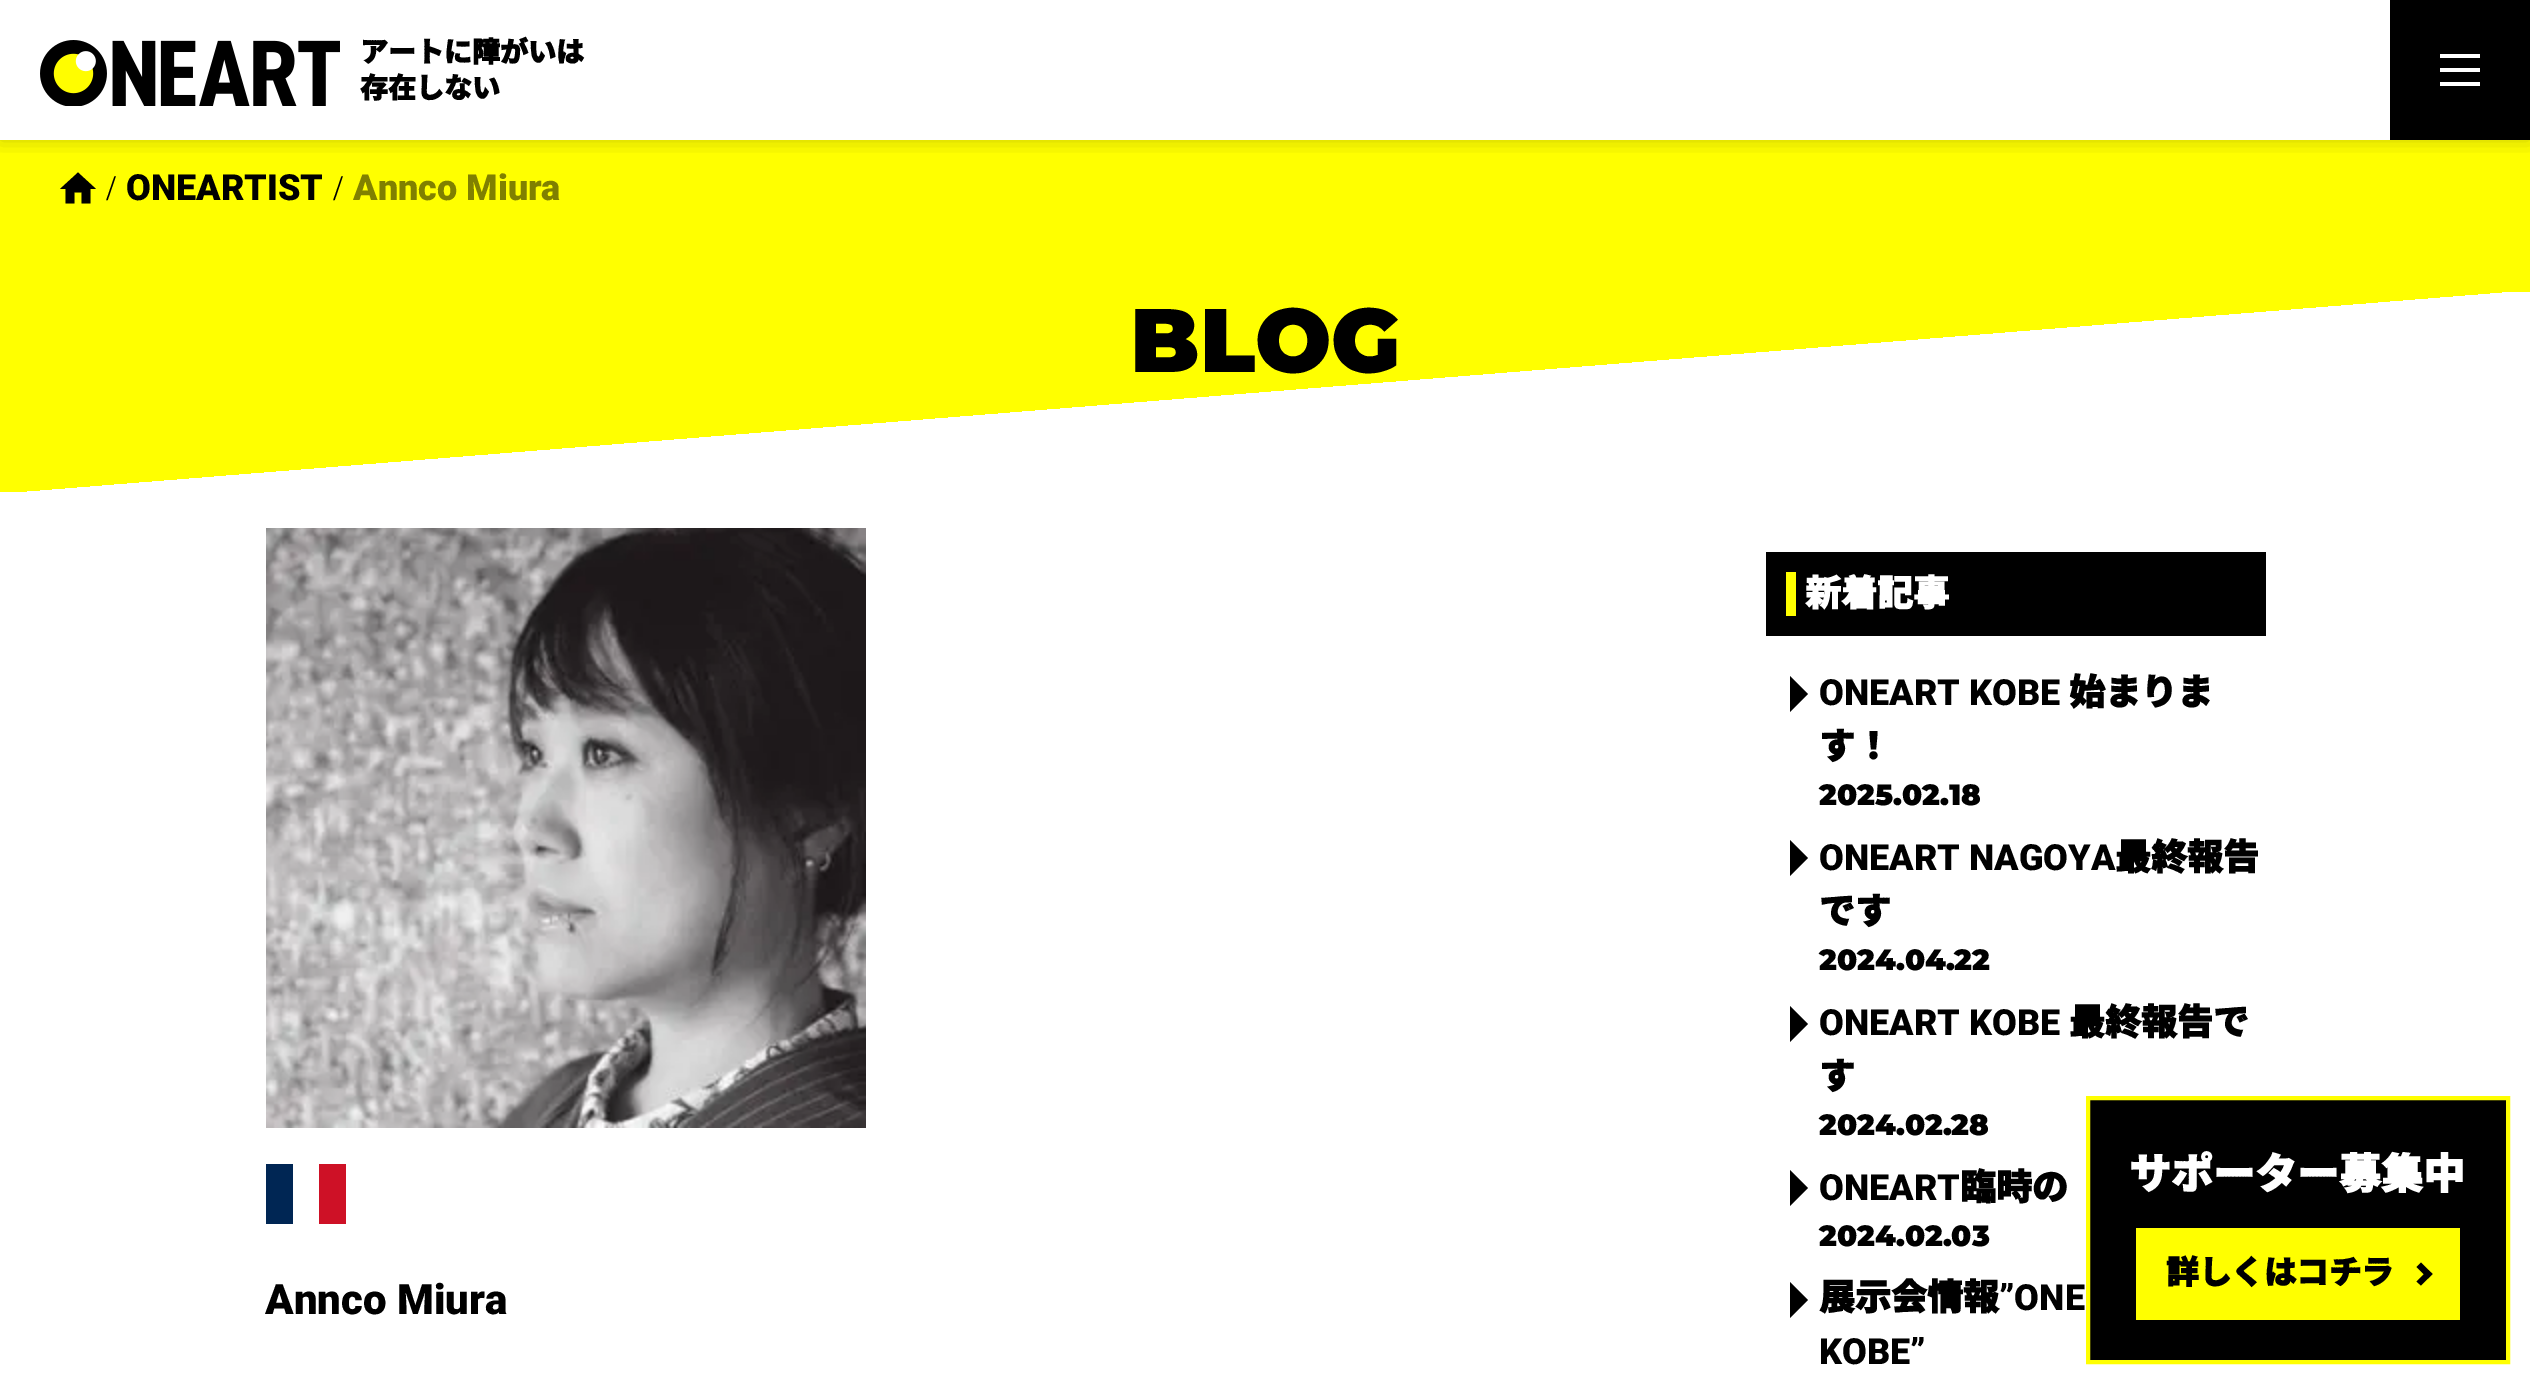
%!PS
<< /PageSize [2530 1383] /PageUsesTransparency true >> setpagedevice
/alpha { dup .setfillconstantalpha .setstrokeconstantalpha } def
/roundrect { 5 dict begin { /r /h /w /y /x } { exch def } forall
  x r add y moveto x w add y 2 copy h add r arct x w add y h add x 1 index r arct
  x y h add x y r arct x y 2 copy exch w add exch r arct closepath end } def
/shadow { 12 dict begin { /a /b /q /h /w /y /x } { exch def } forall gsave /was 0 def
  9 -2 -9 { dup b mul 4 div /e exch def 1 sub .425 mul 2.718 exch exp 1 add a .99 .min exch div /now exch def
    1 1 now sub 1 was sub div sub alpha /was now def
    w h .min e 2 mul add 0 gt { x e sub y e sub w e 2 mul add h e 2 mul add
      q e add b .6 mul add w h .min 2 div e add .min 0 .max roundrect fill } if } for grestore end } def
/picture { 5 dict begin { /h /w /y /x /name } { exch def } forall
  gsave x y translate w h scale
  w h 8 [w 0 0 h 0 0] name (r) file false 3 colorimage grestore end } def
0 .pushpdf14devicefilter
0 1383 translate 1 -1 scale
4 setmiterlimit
1 setgray
0 0 2530 1383 rectfill
1 1 0 setrgbcolor
0 140 2530 152 rectfill
gsave
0 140 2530 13 rectclip
0 setgray
0 0 2530 140 0 10 0.2 shadow
grestore
(img1.rgb) 40 40 300 66 picture
/NotoSansJP-Bold [28 0 0 -28 0 0] selectfont
0 setgray
360 62 moveto (アートに障がいは) show
360 98 moveto (存在しない) show
2390 0 140 140 rectfill
1 setgray
2440 82 40 4 rectfill
2440 54 40 4 rectfill
2440 68 40 4 rectfill
gsave newpath 0 292 moveto 2503 292 lineto 2503 492 lineto 0 492 lineto closepath clip newpath
<< /ShadingType 2 /ColorSpace /DeviceRGB /Coords [1249 193 1281 591] /Extend [true true] /Function << /FunctionType 3 /Domain [0 1] /Functions [<< /FunctionType 2 /Domain [0 1] /C0 [1 1 0] /C1 [1 1 0] /N 1 >> << /FunctionType 2 /Domain [0 1] /C0 [1 1 1] /C1 [1 1 1] /N 1 >>] /Bounds [0.5] /Encode [0 1 0 1] >> >> shfill grestore
0 setgray
newpath 74.5 203.5 moveto 74.5 192.5 lineto 81.5 192.5 lineto 81.5 203.5 lineto 90.5 203.5 lineto 90.5 189 lineto 96 189 lineto 78 172.5 lineto 60 189 lineto 65.5 189 lineto 65.5 203.5 lineto closepath fill
/LiberationSerif-Regular [36 0 0 -36 0 0] selectfont
106 200 moveto (/) show
/Roboto-Black [36 0 0 -36 0 0] selectfont
126 200 moveto (ONEARTIST) show
/LiberationSerif-Regular [36 0 0 -36 0 0] selectfont
333 200 moveto (/) show
/Roboto-Black [36 0 0 -36 0 0] selectfont
0.502 0.502 0 setrgbcolor
353 200 moveto (Annco Miura) show
/Montserrat-Thin [90 0 0 -90 0 0] selectfont
0 setgray
1130 372 moveto (BLOG) show
(img2.rgb) 266 528 600 600 picture
0 0.149 0.329 setrgbcolor
266 1164 27 60 rectfill
0.808 0.067 0.149 setrgbcolor
319 1164 27 60 rectfill
/Roboto-Black [42 0 0 -42 0 0] selectfont
0 setgray
265 1314 moveto (Annco Miura) show
1766 552 500 84 rectfill
1 1 0 setrgbcolor
1786 572 10 44 rectfill
/NotoSansJP-Bold [36 0 0 -36 0 0] selectfont
1 setgray
1805 606 moveto (新着記事) show
0 setgray
newpath 1790 712 moveto 1790 676 lineto 1808 694 lineto closepath fill
/Roboto-Black [36 0 0 -36 0 0] selectfont
1819 705 moveto (ONEART KOBE) show
/NotoSansJP-Bold [36 0 0 -36 0 0] selectfont
2069 705 moveto (始まりま) show
1819 759 moveto (す！) show
/Montserrat-Thin [29.25 0 0 -29.25 0 0] selectfont
1819 805 moveto (2025.02.18) show
newpath 1790 876 moveto 1790 840 lineto 1808 858 lineto closepath fill
/Roboto-Black [36 0 0 -36 0 0] selectfont
1819 870 moveto (ONEART NAGOYA) show
/NotoSansJP-Bold [36 0 0 -36 0 0] selectfont
2115 870 moveto (最終報告) show
1819 924 moveto (です) show
/Montserrat-Thin [29.25 0 0 -29.25 0 0] selectfont
1819 970 moveto (2024.04.22) show
newpath 1790 1042 moveto 1790 1006 lineto 1808 1024 lineto closepath fill
/Roboto-Black [36 0 0 -36 0 0] selectfont
1819 1035 moveto (ONEART KOBE) show
/NotoSansJP-Bold [36 0 0 -36 0 0] selectfont
2069 1035 moveto (最終報告で) show
1819 1089 moveto (す) show
/Montserrat-Thin [29.25 0 0 -29.25 0 0] selectfont
1819 1135 moveto (2024.02.28) show
newpath 1790 1206 moveto 1790 1170 lineto 1808 1188 lineto closepath fill
/Roboto-Black [36 0 0 -36 0 0] selectfont
1819 1200 moveto (ONEART) show
/NotoSansJP-Bold [36 0 0 -36 0 0] selectfont
1960 1200 moveto (臨時の) show
/Montserrat-Thin [29.25 0 0 -29.25 0 0] selectfont
1819 1246 moveto (2024.02.03) show
newpath 1790 1318 moveto 1790 1282 lineto 1808 1300 lineto closepath fill
/NotoSansJP-Bold [36 0 0 -36 0 0] selectfont
1819 1310 moveto (展示会情報) show
/Roboto-Black [36 0 0 -36 0 0] selectfont
1999 1310 moveto (”ONE) show
1819 1364 moveto (KOBE”) show
newpath 2088 1098 moveto 2508 1098 lineto 2508 1362 lineto 2088 1362 lineto closepath gsave fill grestore
1 1 0 setrgbcolor
4 setlinewidth
stroke
/NotoSansJP-Bold [42 0 0 -42 0 0] selectfont
1 setgray
2129 1189 moveto (サポーター募集中) show
1 1 0 setrgbcolor
2136 1228 324 92 rectfill
/NotoSansJP-Bold [32.5 0 0 -32.5 0 0] selectfont
0 setgray
2166 1284 moveto (詳しくはコチラ) show
newpath 2421 1262.5 moveto 2432.5 1274 lineto 2428 1278.5 lineto 2416.5 1267 lineto closepath fill
newpath 2428 1270 moveto 2432.5 1274 lineto 2421 1285.5 lineto 2416.5 1281.5 lineto closepath fill
.poppdf14devicefilter showpage
